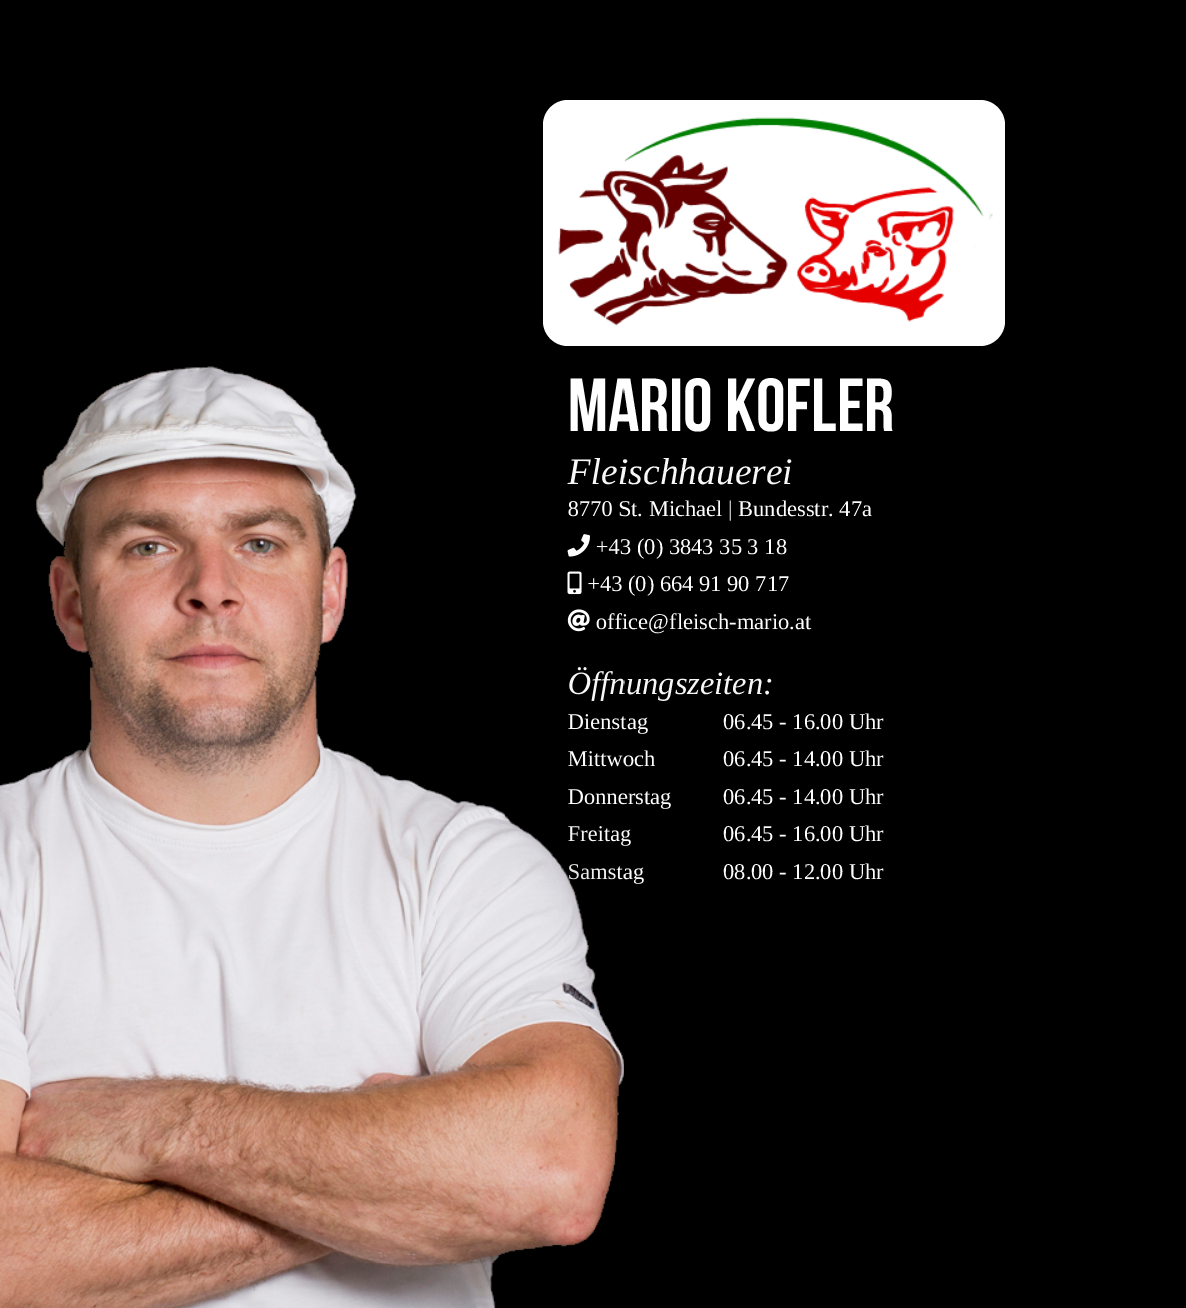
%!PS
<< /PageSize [1186 1308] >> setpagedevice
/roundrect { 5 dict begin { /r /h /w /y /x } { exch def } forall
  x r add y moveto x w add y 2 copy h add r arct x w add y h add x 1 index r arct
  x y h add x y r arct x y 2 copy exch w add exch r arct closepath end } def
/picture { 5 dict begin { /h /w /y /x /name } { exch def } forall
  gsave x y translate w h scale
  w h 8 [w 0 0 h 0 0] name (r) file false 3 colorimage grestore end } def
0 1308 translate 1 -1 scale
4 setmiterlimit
0 setgray
0 0 1186 1308 rectfill
/BebasNeue-Regular [75 0 0 -75 0 0] selectfont
1 setgray
568 431 moveto (MARIO KOFLER) show
/LiberationSerif-Italic [37.5 0 0 -37.5 0 0] selectfont
0.973 setgray
568 484 moveto (Fleischhauerei) show
/LiberationSerif-Regular [22.5 0 0 -22.5 0 0] selectfont
1 setgray
568 516 moveto (8770 St. Michael | Bundesstr. 47a) show
(img3.rgb) 567 534 23 23 picture
596 554 moveto (+43 \(0\) 3843 35 3 18) show
(img4.rgb) 567 571 15 24 picture
587 591 moveto (+43 \(0\) 664 91 90 717) show
(img5.rgb) 567 609 23 23 picture
596 629 moveto (office@fleisch-mario.at) show
/LiberationSerif-Italic [32.5 0 0 -32.5 0 0] selectfont
0.973 setgray
568 694 moveto (Öffnungszeiten:) show
/LiberationSerif-Regular [22.5 0 0 -22.5 0 0] selectfont
1 setgray
568 729 moveto (Dienstag) show
568 766 moveto (Mittwoch) show
568 804 moveto (Donnerstag) show
568 841 moveto (Freitag) show
568 879 moveto (Samstag) show
(img1.rgb) 0 366 624 942 picture
543 100 462 246 25 roundrect fill
(img2.rgb) 558 117 435 209 picture
723 729 moveto (06.45 - 16.00 Uhr) show
723 766 moveto (06.45 - 14.00 Uhr) show
723 804 moveto (06.45 - 14.00 Uhr) show
723 841 moveto (06.45 - 16.00 Uhr) show
723 879 moveto (08.00 - 12.00 Uhr) show
showpage
